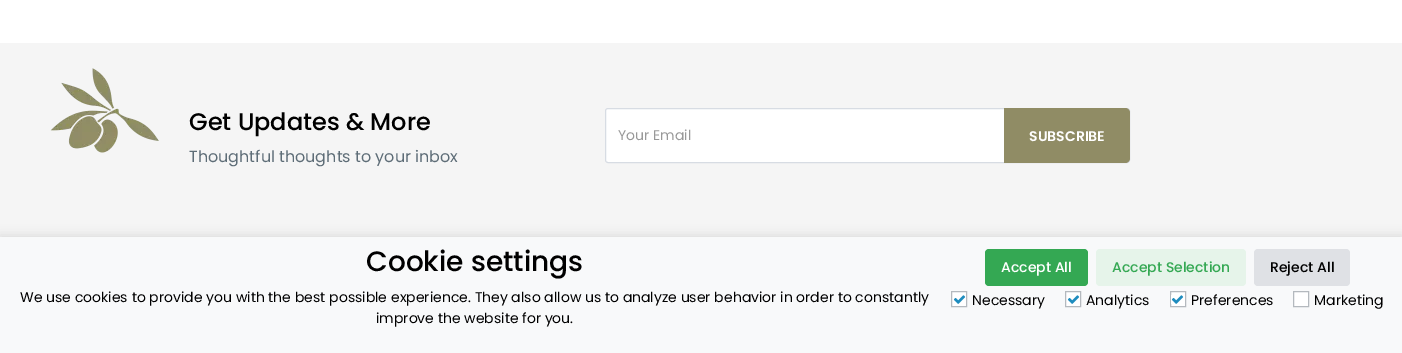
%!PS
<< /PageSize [1402 353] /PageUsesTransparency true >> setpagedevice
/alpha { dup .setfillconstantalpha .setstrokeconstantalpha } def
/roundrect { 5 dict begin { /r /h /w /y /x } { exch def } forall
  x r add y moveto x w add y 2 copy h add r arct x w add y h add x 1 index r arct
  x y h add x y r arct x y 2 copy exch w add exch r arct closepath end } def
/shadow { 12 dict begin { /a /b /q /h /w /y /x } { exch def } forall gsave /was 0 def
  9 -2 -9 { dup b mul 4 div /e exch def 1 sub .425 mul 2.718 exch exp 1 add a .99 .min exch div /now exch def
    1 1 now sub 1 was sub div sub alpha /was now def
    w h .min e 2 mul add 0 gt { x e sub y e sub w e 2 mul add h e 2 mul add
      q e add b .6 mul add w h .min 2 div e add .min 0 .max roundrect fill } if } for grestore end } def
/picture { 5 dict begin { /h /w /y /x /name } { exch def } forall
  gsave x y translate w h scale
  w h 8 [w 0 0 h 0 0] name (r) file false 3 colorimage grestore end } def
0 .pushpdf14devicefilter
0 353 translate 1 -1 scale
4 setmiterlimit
1 setgray
0 0 1402 353 rectfill
0.961 setgray
0 43 1402 194 rectfill
(img1.rgb) 50 68 109 85 picture
/Poppins-Medium [24 0 0 -24 0 0] selectfont
0 setgray
189 130 moveto (Get Updates & More) show
/Poppins-Regular [16 0 0 -16 0 0] selectfont
0.369 0.427 0.467 setrgbcolor
189 162 moveto (Thoughtful thoughts to your inbox) show
1 setgray
605.5 108.5 524 54 2.5 roundrect gsave fill grestore
0.843 0.863 0.89 setrgbcolor
stroke
/Poppins-Regular [14 0 0 -14 0 0] selectfont
0.6 setgray
618 140 moveto (Your Email) show
0.565 0.549 0.396 setrgbcolor
newpath 1004 108 moveto 1125 108 lineto 1128 108 1130 110 1130 113 curveto 1130 158 lineto 1130 161 1128 163 1125 163 curveto 1004 163 lineto closepath fill
/Poppins-SemiBold [14 0 0 -14 0 0] selectfont
1 setgray
1029 141 moveto (SUBSCRIBE) show
0 setgray
0 235 1402 116 0 5 0.1 shadow
0.973 0.976 0.98 setrgbcolor
0 237 1402 116 rectfill
/Poppins-Medium [28 0 0 -28 0 0] selectfont
0 setgray
366 271 moveto (Cookie settings) show
/Poppins-Regular [14 0 0 -14 0 0] selectfont
20 302 moveto (We use cookies to provide you with the best possible experience. They also allow us to analyze user behavior in order to constantly) show
376 323 moveto (improve the website for you.) show
0.204 0.659 0.325 setrgbcolor
985 249 103 37 4 roundrect fill
/Poppins-Medium [14 0 0 -14 0 0] selectfont
1 setgray
1001 272 moveto (Accept All) show
0.902 0.957 0.918 setrgbcolor
1096 249 150 37 4 roundrect fill
0.204 0.659 0.325 setrgbcolor
1112 272 moveto (Accept Selection) show
0.875 0.882 0.898 setrgbcolor
1254 249 96 37 4 roundrect fill
0 setgray
1270 272 moveto (Reject All) show
1 setgray
newpath 951.5 291.5 moveto 966.5 291.5 lineto 966.5 306.5 lineto 951.5 306.5 lineto closepath gsave fill grestore
0.706 0.725 0.745 setrgbcolor
stroke
(img2.rgb) 953 295 13 9 picture
/Poppins-Regular [14 0 0 -14 0 0] selectfont
0 setgray
972 305 moveto (Necessary) show
1 setgray
newpath 1065.5 291.5 moveto 1080.5 291.5 lineto 1080.5 306.5 lineto 1065.5 306.5 lineto closepath gsave fill grestore
0.706 0.725 0.745 setrgbcolor
stroke
(img2.rgb) 1067 295 13 9 picture
0 setgray
1086 305 moveto (Analytics) show
1 setgray
newpath 1170.5 291.5 moveto 1185.5 291.5 lineto 1185.5 306.5 lineto 1170.5 306.5 lineto closepath gsave fill grestore
0.706 0.725 0.745 setrgbcolor
stroke
(img2.rgb) 1171 295 13 9 picture
0 setgray
1191 305 moveto (Preferences) show
1 setgray
newpath 1293.5 291.5 moveto 1308.5 291.5 lineto 1308.5 306.5 lineto 1293.5 306.5 lineto closepath gsave fill grestore
0.706 0.725 0.745 setrgbcolor
stroke
0 setgray
1314 305 moveto (Marketing) show
.poppdf14devicefilter showpage
